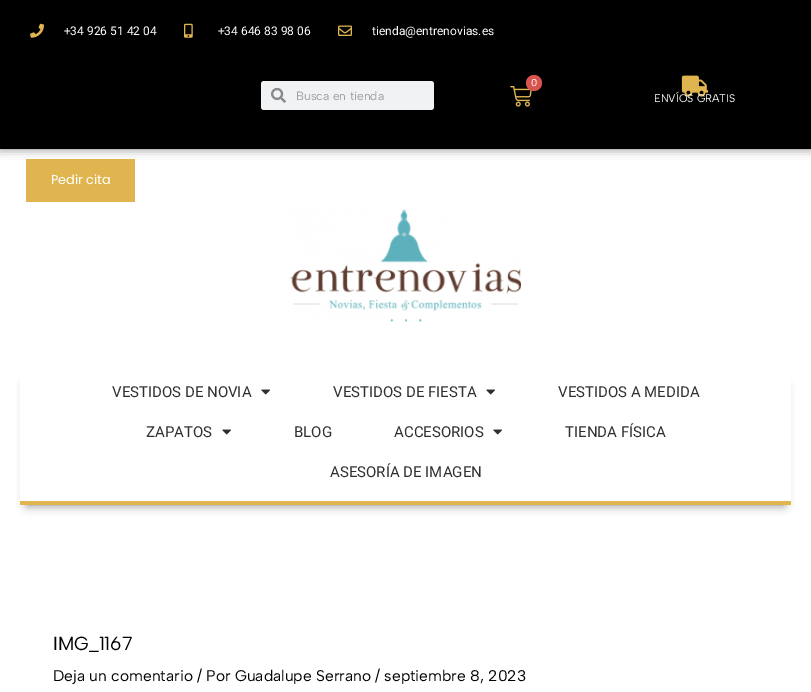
%!PS
<< /PageSize [811 692] /PageUsesTransparency true >> setpagedevice
/alpha { dup .setfillconstantalpha .setstrokeconstantalpha } def
/roundrect { 5 dict begin { /r /h /w /y /x } { exch def } forall
  x r add y moveto x w add y 2 copy h add r arct x w add y h add x 1 index r arct
  x y h add x y r arct x y 2 copy exch w add exch r arct closepath end } def
/shadow { 12 dict begin { /a /b /q /h /w /y /x } { exch def } forall gsave /was 0 def
  9 -2 -9 { dup b mul 4 div /e exch def 1 sub .425 mul 2.718 exch exp 1 add a .99 .min exch div /now exch def
    1 1 now sub 1 was sub div sub alpha /was now def
    w h .min e 2 mul add 0 gt { x e sub y e sub w e 2 mul add h e 2 mul add
      q e add b .6 mul add w h .min 2 div e add .min 0 .max roundrect fill } if } for grestore end } def
/picture { 5 dict begin { /h /w /y /x /name } { exch def } forall
  gsave x y translate w h scale
  w h 8 [w 0 0 h 0 0] name (r) file false 3 colorimage grestore end } def
0 .pushpdf14devicefilter
0 692 translate 1 -1 scale
4 setmiterlimit
1 setgray
0 0 811 692 rectfill
0 setgray
0 0 811 149 0 5 0.5 shadow
0 0 811 149 rectfill
(img1.rgb) 30 23 14 15 picture
/Heebo-Regular [12 0 0 -12 0 0] selectfont
1 setgray
64 35 moveto (+34 926 51 42 04) show
(img2.rgb) 184 23 9 15 picture
218 35 moveto (+34 646 83 98 06) show
(img3.rgb) 338 25 14 11 picture
372 35 moveto (tienda@entrenovias.es) show
(img4.rgb) 510 86 22 21 picture
0.851 0.325 0.31 setrgbcolor
newpath 534 83 8 0 360 arc closepath fill
/AlbertSans-Regular [10 0 0 -10 0 0] selectfont
1 setgray
531 86 moveto (0) show
0.945 0.949 0.953 setrgbcolor
261 81 173 29 3 roundrect fill
(img5.rgb) 271 87 15 16 picture
/AlbertSans-Regular [12 0 0 -12 0 0] selectfont
0.62 setgray
296 100 moveto (Busca en tienda) show
(img6.rgb) 681 75 28 22 picture
/AlbertSans-Regular [11 0 0 -11 0 0] selectfont
1 setgray
654 102 moveto (ENVÍOS GRATIS) show
0.878 0.706 0.306 setrgbcolor
26 159 109 43 rectfill
/Poppins-Regular [12.75 0 0 -12.75 0 0] selectfont
1 setgray
51 184 moveto (Pedir cita) show
(img7.rgb) 290 209 231 113 picture
gsave
newpath 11 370 moveto 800 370 lineto 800 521 lineto 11 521 lineto closepath 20 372 moveto 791 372 lineto 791 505 lineto 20 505 lineto closepath eoclip newpath
0 setgray
27 386 757 119 0 5 0.5 shadow
grestore
0.878 0.706 0.306 setrgbcolor
20 501 771 4 rectfill
/Heebo-Regular [15 0 0 -15 0 0] selectfont
0.188 setgray
112 397 moveto (VESTIDOS DE NOVIA) show
(img8.rgb) 261 389 9 6 picture
333 397 moveto (VESTIDOS DE FIESTA) show
(img8.rgb) 486 389 9 6 picture
558 397 moveto (VESTIDOS A MEDIDA) show
146 437 moveto (ZAPATOS) show
(img8.rgb) 222 429 9 6 picture
294 437 moveto (BLOG) show
394 437 moveto (ACCESORIOS) show
(img8.rgb) 493 429 9 6 picture
565 437 moveto (TIENDA FÍSICA) show
330 477 moveto (ASESORÍA DE IMAGEN) show
/AlbertSans-Regular [19 0 0 -19 0 0] selectfont
0 setgray
53 650 moveto (IMG_1167) show
/AlbertSans-Regular [15.5 0 0 -15.5 0 0] selectfont
53 681 moveto (Deja un comentario / Por Guadalupe Serrano / septiembre 8, 2023) show
.poppdf14devicefilter showpage
